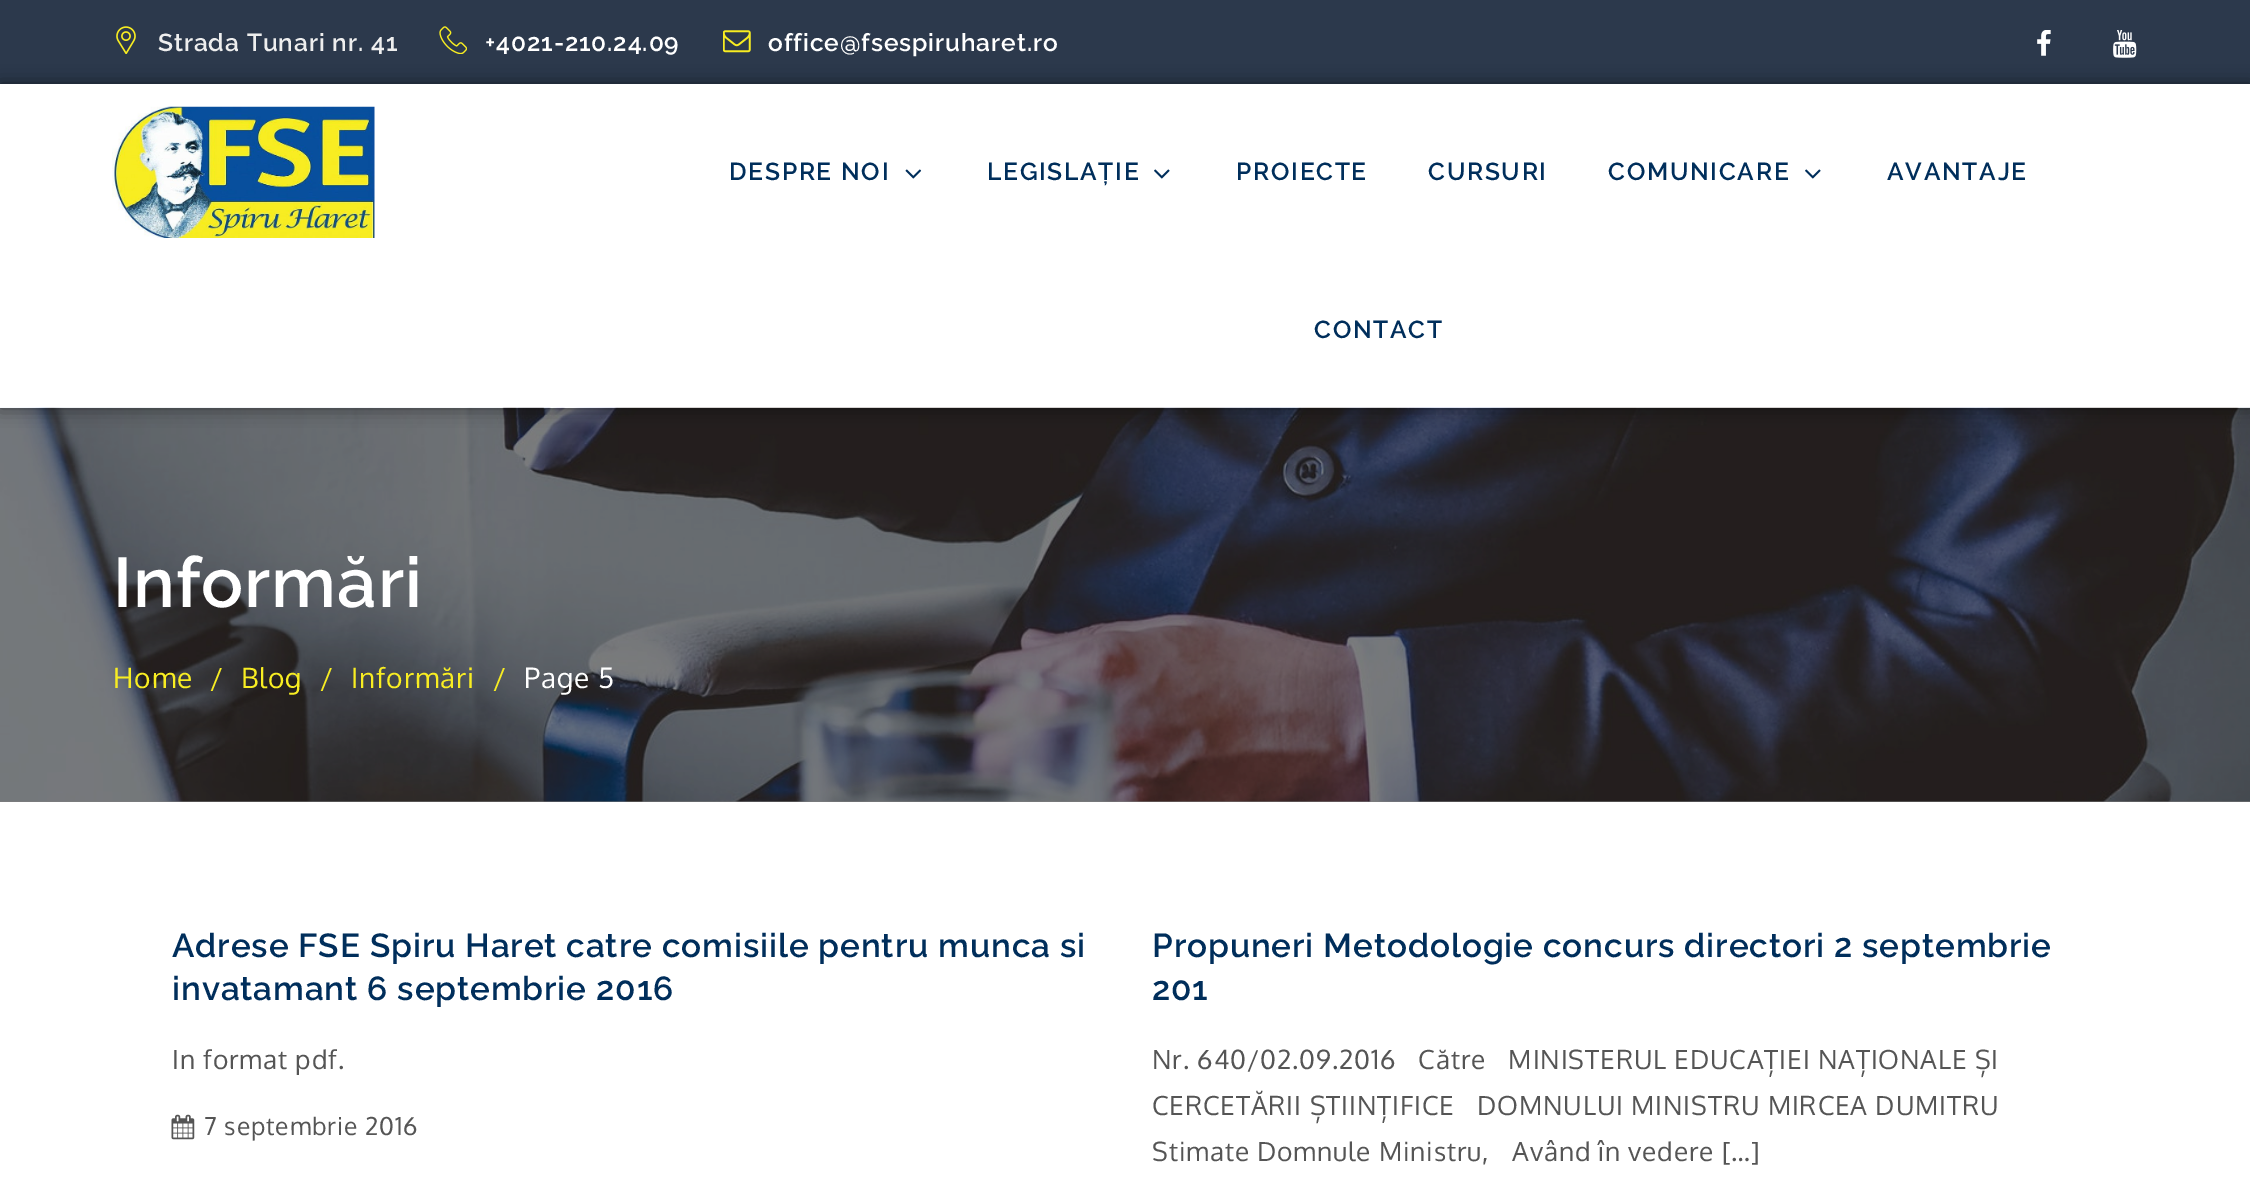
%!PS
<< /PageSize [2250 1197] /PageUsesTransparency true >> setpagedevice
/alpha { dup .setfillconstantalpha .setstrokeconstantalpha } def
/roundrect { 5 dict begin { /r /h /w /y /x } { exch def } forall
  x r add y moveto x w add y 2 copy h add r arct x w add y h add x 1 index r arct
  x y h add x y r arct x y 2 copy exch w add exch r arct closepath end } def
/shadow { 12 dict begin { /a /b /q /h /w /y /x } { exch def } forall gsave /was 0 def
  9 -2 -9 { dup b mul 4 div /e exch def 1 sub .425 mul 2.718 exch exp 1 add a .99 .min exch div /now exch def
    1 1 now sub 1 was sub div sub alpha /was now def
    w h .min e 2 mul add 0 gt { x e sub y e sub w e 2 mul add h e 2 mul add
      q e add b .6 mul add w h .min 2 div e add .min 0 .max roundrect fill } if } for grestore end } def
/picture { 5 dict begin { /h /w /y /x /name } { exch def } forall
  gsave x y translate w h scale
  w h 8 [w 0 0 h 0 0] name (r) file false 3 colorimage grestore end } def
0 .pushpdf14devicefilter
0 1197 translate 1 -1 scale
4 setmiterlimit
1 setgray
0 0 2250 1197 rectfill
0.502 setgray
0 801 2250 1 rectfill
0.173 0.224 0.298 setrgbcolor
0 0 2250 84 rectfill
(img1.rgb) 116 26 20 28 picture
/Raleway-SemiBold [24.5 0 0 -24.5 0 0] selectfont
0.933 setgray
158 51 moveto 0.88 0 (Strada Tunari nr. 41) ashow
(img2.rgb) 439 26 28 28 picture
1 setgray
485 51 moveto 0.88 0 (+4021-210.24.09) ashow
(img3.rgb) 723 30 28 23 picture
768 51 moveto 0.88 0 (office@fsespiruharet.ro) ashow
(img4.rgb) 2037 30 14 26 picture
(img5.rgb) 2113 30 24 28 picture
(img9.rgb) 0 407 2250 395 picture
gsave
newpath 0 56 moveto 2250 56 lineto 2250 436 lineto 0 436 lineto closepath 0 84 moveto 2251 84 lineto 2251 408 lineto 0 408 lineto closepath eoclip newpath
0 setgray
0 84 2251 324 0 9 0.5 shadow
grestore
0.1 alpha
25 407 2225 1 rectfill
1 alpha
(img6.rgb) 112 106 263 132 picture
0 0.18 0.357 setrgbcolor
729 180 moveto 1.75 0 (DESPRE NOI) ashow
(img7.rgb) 905 169 17 10 picture
987 180 moveto 1.75 0 (LEGISLAȚIE) ashow
(img8.rgb) 1154 169 16 10 picture
1236 180 moveto 1.75 0 (PROIECTE) ashow
1428 180 moveto 1.75 0 (CURSURI) ashow
1608 180 moveto 1.75 0 (COMUNICARE) ashow
(img8.rgb) 1805 169 16 10 picture
1887 180 moveto 1.75 0 (AVANTAJE) ashow
1314 338 moveto 1.75 0 (CONTACT) ashow
/Raleway-SemiBold [70 0 0 -70 0 0] selectfont
1 setgray
113 607 moveto 0.88 0 (Informări) ashow
/Oxygen-Regular [28 0 0 -28 0 0] selectfont
0.973 0.929 0.133 setrgbcolor
113 688 moveto 0.88 0 (Home) ashow
210 688 moveto 0.88 0 (/) ashow
241 688 moveto 0.88 0 (Blog) ashow
320 688 moveto 0.88 0 (/) ashow
351 688 moveto 0.88 0 (Informări) ashow
493 688 moveto 0.88 0 (/) ashow
1 setgray
524 688 moveto 0.88 0 (Page 5) ashow
/Raleway-SemiBold [33.25 0 0 -33.25 0 0] selectfont
0 0.18 0.357 setrgbcolor
172 957 moveto 0.88 0 (Adrese FSE Spiru Haret catre comisiile pentru munca si) ashow
172 1000 moveto 0.88 0 (invatamant 6 septembrie 2016) ashow
/Oxygen-Regular [26.25 0 0 -26.25 0 0] selectfont
0.333 setgray
172 1069 moveto 0.88 0 (In format pdf.) ashow
(img10.rgb) 171 1114 24 26 picture
/Oxygen-Regular [24.5 0 0 -24.5 0 0] selectfont
204 1135 moveto 0.88 0 (7 septembrie 2016) ashow
/Raleway-SemiBold [33.25 0 0 -33.25 0 0] selectfont
0 0.18 0.357 setrgbcolor
1152 957 moveto 0.88 0 (Propuneri Metodologie concurs directori 2 septembrie) ashow
1152 1000 moveto 0.88 0 (201) ashow
/Oxygen-Regular [26.25 0 0 -26.25 0 0] selectfont
0.333 setgray
1152 1069 moveto 0.88 0 (Nr. 640/02.09.2016   Către   MINISTERUL EDUCAȚIEI NAȚIONALE ȘI) ashow
1152 1115 moveto 0.88 0 (CERCETĂRII ȘTIINȚIFICE   DOMNULUI MINISTRU MIRCEA DUMITRU) ashow
1152 1161 moveto 0.88 0 (Stimate Domnule Ministru,   Având în vedere […]) ashow
.poppdf14devicefilter showpage
